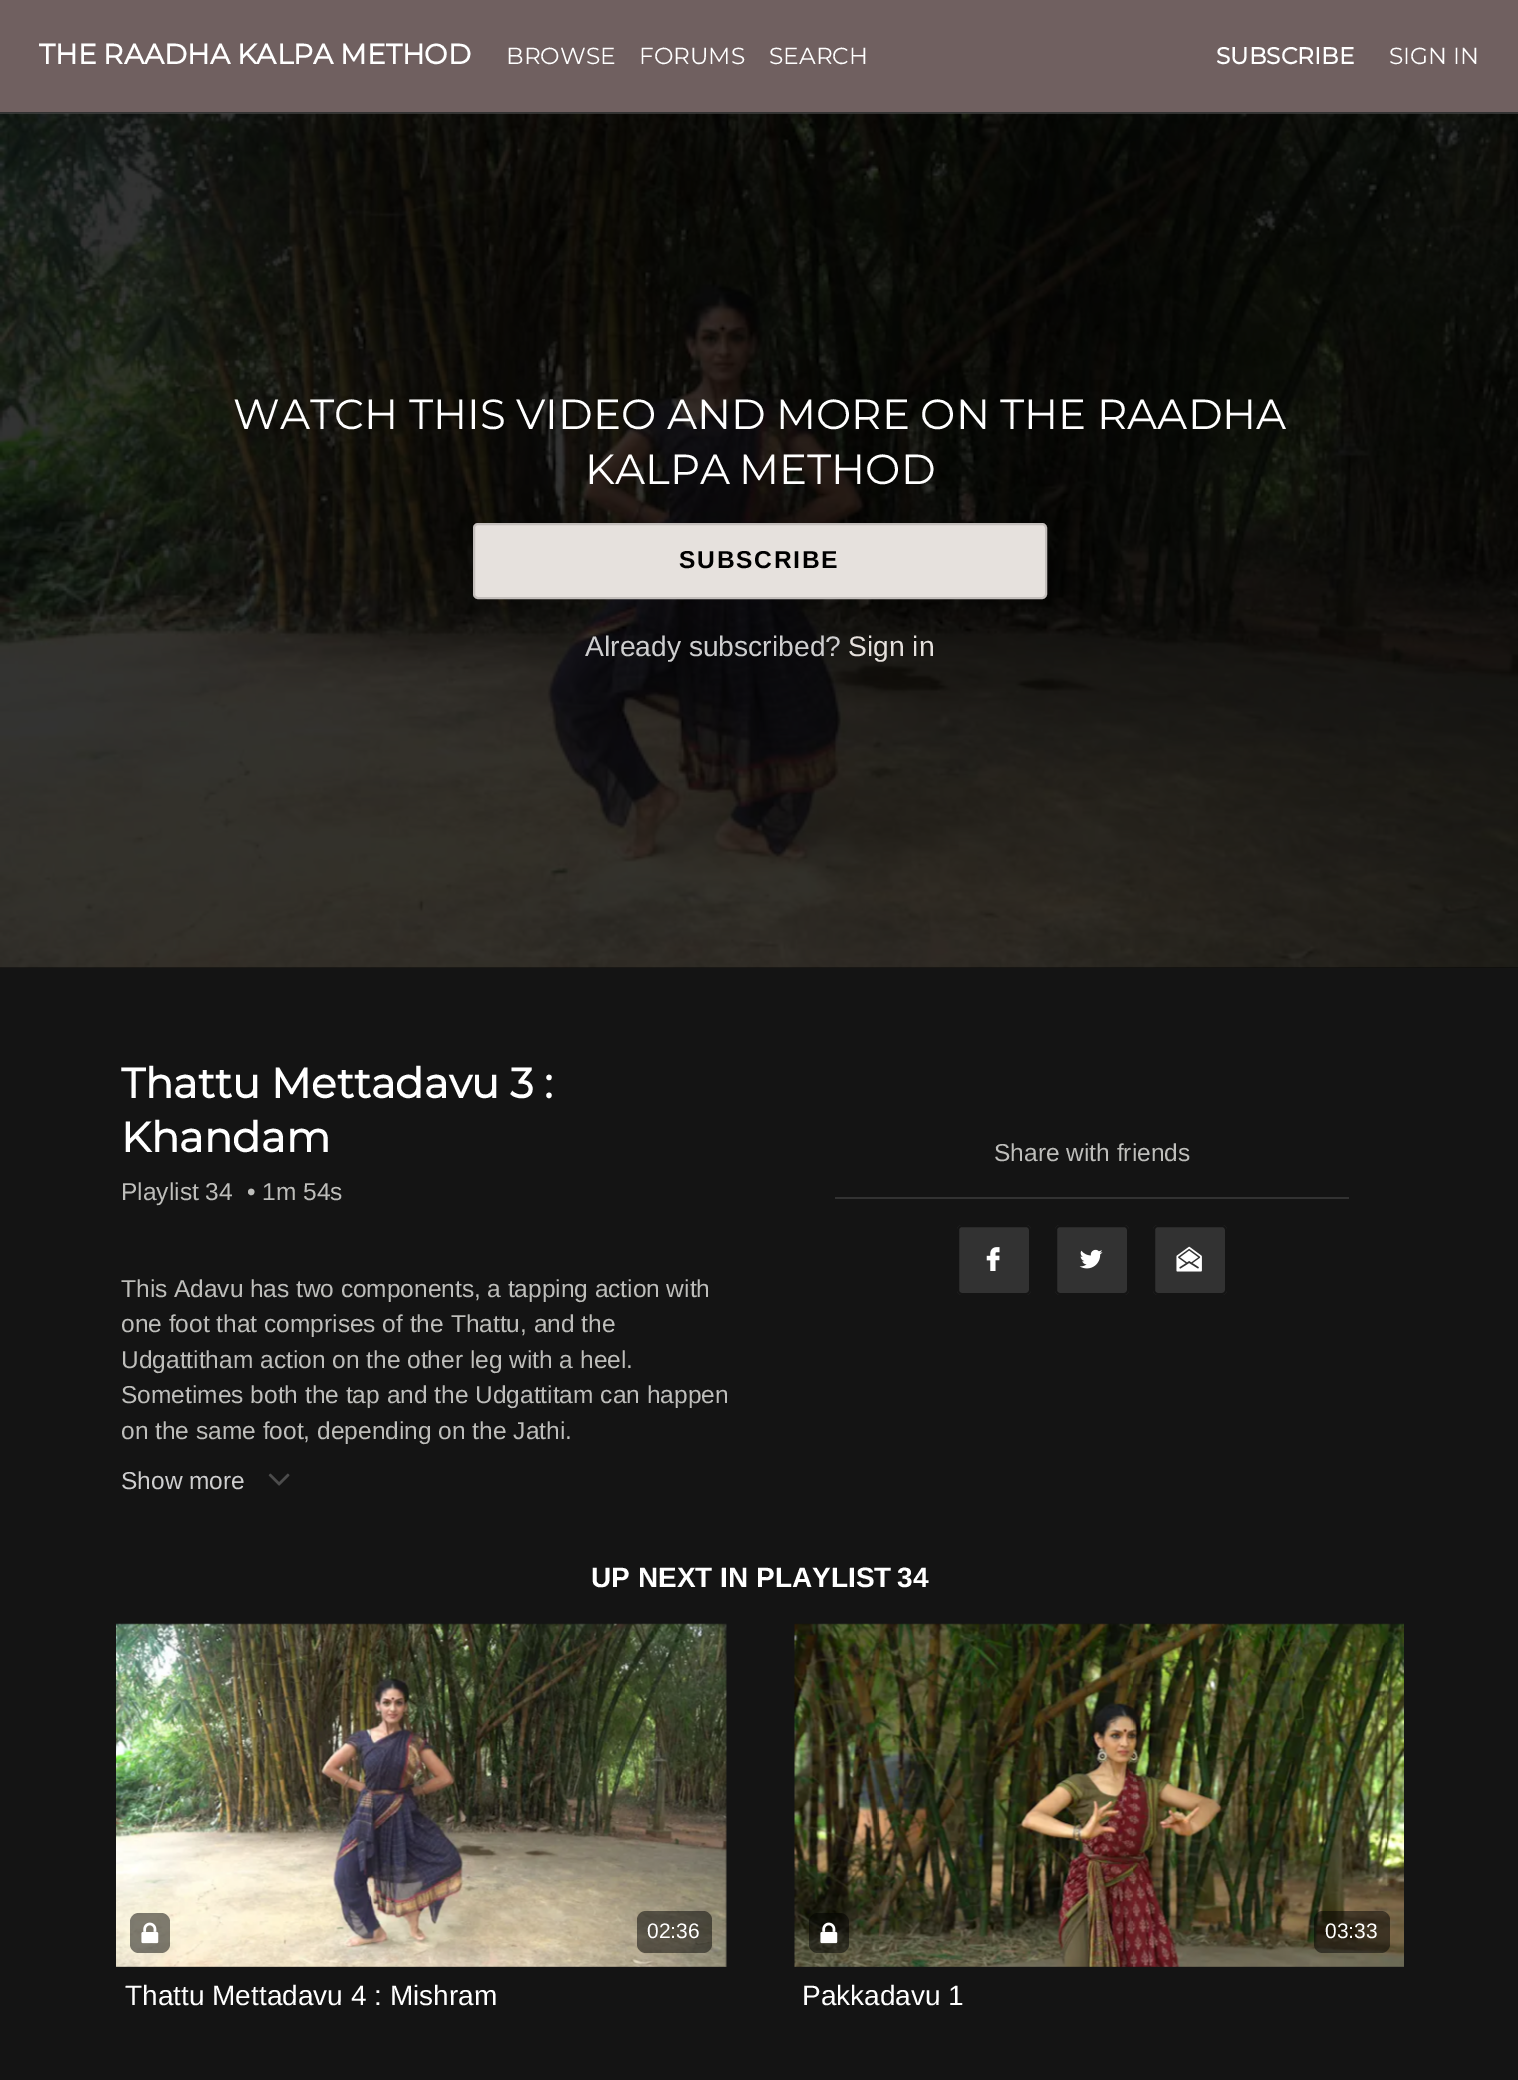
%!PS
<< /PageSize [1518 2080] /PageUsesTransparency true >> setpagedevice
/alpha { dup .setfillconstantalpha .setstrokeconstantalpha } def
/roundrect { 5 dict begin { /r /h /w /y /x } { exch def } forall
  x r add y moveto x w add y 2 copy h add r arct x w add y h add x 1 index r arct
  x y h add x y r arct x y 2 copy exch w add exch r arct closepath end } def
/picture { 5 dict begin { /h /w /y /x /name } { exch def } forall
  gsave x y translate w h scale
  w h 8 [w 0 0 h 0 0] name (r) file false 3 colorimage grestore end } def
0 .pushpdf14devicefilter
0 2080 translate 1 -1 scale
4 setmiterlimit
0.078 setgray
0 0 1518 2080 rectfill
0.439 0.376 0.376 setrgbcolor
0 0 1518 112 rectfill
0.196 setgray
0 112 1518 2 rectfill
/Montserrat-Bold [28 0 0 -28 0 0] selectfont
1 setgray
39 64 moveto -0.5 0 32 (THE RAADHA KALPA METHOD) widthshow
/Montserrat-Regular [23.25 0 0 -23.25 0 0] selectfont
506 64 moveto (BROWSE) show
639 64 moveto (FORUMS) show
769 64 moveto (SEARCH) show
/Montserrat-Bold [23.25 0 0 -23.25 0 0] selectfont
1216 64 moveto (SUBSCRIBE) show
/Montserrat-Regular [23.25 0 0 -23.25 0 0] selectfont
1389 64 moveto (SIGN IN) show
0 setgray
0 967 1518 1 rectfill
(img1.rgb) 0 113 1518 855 picture
/Montserrat-Regular [42 0 0 -42 0 0] selectfont
1 setgray
233 429 moveto -0.5 0 32 (WATCH THIS VIDEO AND MORE ON THE RAADHA) widthshow
585 484 moveto -2 0 32 (KALPA METHOD) widthshow
0.902 0.882 0.867 setrgbcolor
474 524 572 74 4 roundrect gsave fill grestore
0.769 0.749 0.737 setrgbcolor
2 setlinewidth
stroke
/LiberationSans-Bold [24.5 0 0 -24.5 0 0] selectfont
0 setgray
679 568 moveto 1.75 0 (SUBSCRIBE) ashow
/LiberationSans-Regular [28.25 0 0 -28.25 0 0] selectfont
0.808 0.808 0.812 setrgbcolor
585 656 moveto (Already subscribed?) show
0.902 0.882 0.867 setrgbcolor
848 656 moveto (Sign in) show
/Montserrat-Bold [42 0 0 -42 0 0] selectfont
1 setgray
121 1098 moveto -0.5 0 32 (Thattu Mettadavu 3 :) widthshow
121 1152 moveto (Khandam) show
/LiberationSans-Regular [24.5 0 0 -24.5 0 0] selectfont
0.745 0.745 0.733 setrgbcolor
121 1200 moveto (Playlist 34) show
247 1200 moveto (• 1m 54s) show
121 1297 moveto -0.25 0 32 (This Adavu has two components, a tapping action with) widthshow
121 1332 moveto (one foot that comprises of the Thattu, and the) show
121 1368 moveto (Udgattitham action on the other leg with a heel.) show
121 1403 moveto (Sometimes both the tap and the Udgattitam can happen) show
121 1439 moveto (on the same foot, depending on the Jathi.) show
0.808 0.808 0.812 setrgbcolor
121 1489 moveto (Show more) show
(img2.rgb) 268 1473 22 13 picture
0.196 setgray
835 1197 514 2 rectfill
0.745 0.745 0.733 setrgbcolor
994 1161 moveto (Share with friends) show
0.196 setgray
957 1225 74 70 5 roundrect fill
(img3.rgb) 986 1247 14 24 picture
0.078 setgray
958 1226 72 68 4 roundrect stroke
0.196 setgray
1055 1225 74 70 5 roundrect fill
(img4.rgb) 1079 1249 24 20 picture
0.078 setgray
1056 1226 72 68 4 roundrect stroke
0.196 setgray
1153 1225 74 70 5 roundrect fill
(img5.rgb) 1176 1246 26 26 picture
0.078 setgray
1154 1226 72 68 4 roundrect stroke
/LiberationSans-Bold [28 0 0 -28 0 0] selectfont
1 setgray
591 1587 moveto (UP NEXT IN) show
756 1587 moveto -2 0 32 (PLAYLIST 34) widthshow
(img6.rgb) 116 1623 611 344 picture
0.5 alpha
0 setgray
130 1913 40 40 9 roundrect fill
1 alpha
(img7.rgb) 141 1922 18 22 picture
0.5 alpha
637 1911 75 42 9 roundrect fill
/LiberationSans-Regular [21 0 0 -21 0 0] selectfont
1 alpha
1 setgray
647 1938 moveto (02:36) show
/LiberationSans-Regular [28 0 0 -28 0 0] selectfont
125 2005 moveto (Thattu Mettadavu 4 : Mishram) show
(img8.rgb) 794 1623 610 344 picture
0.5 alpha
0 setgray
809 1913 40 40 9 roundrect fill
1 alpha
(img9.rgb) 820 1922 18 22 picture
0.5 alpha
1314 1911 76 42 9 roundrect fill
/LiberationSans-Regular [21 0 0 -21 0 0] selectfont
1 alpha
1 setgray
1325 1938 moveto (03:33) show
/LiberationSans-Regular [28 0 0 -28 0 0] selectfont
802 2005 moveto (Pakkadavu 1) show
.poppdf14devicefilter showpage
